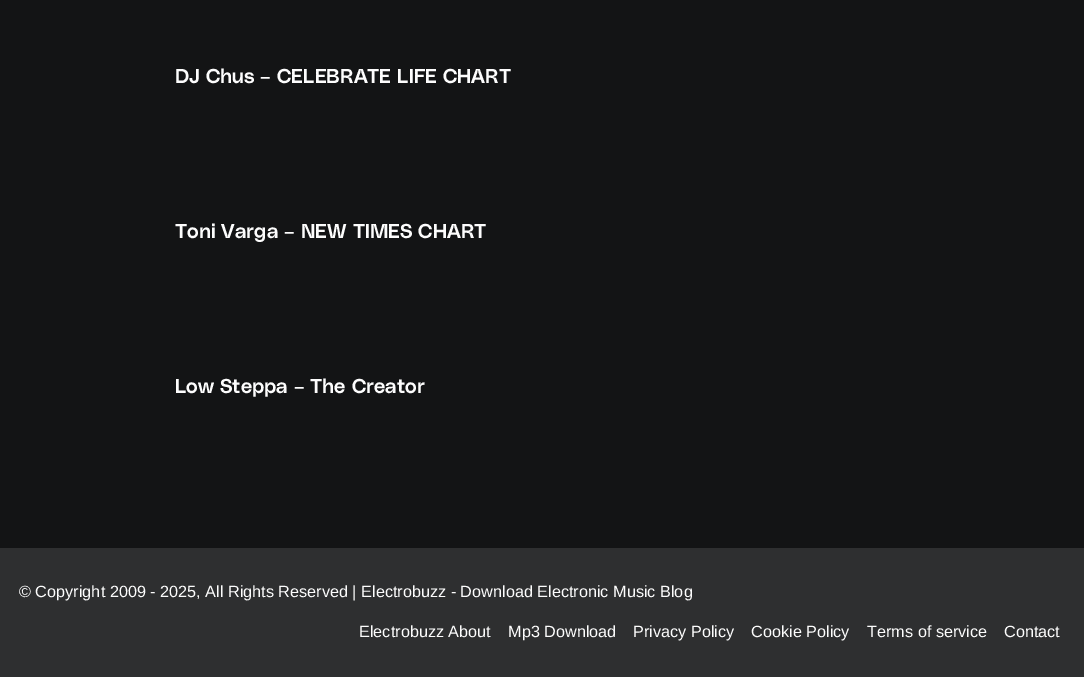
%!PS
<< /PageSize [1084 677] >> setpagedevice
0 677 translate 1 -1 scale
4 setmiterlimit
0.075 0.078 0.082 setrgbcolor
0 0 1084 677 rectfill
/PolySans-SemiBold [20 0 0 -20 0 0] selectfont
0.992 setgray
175 83 moveto (DJ Chus – CELEBRATE LIFE CHART) show
175 238 moveto (Toni Varga – NEW TIMES CHART) show
175 393 moveto (Low Steppa – The Creator) show
0.18 0.184 0.188 setrgbcolor
0 548 1084 129 rectfill
/LiberationSans-Regular [16.25 0 0 -16.25 0 0] selectfont
0.992 setgray
19 597 moveto (© Copyright 2009 - 2025, All Rights Reserved | Electrobuzz - Download Electronic Music Blog) show
359 637 moveto (Electrobuzz About) show
508 637 moveto (Mp3 Download) show
633 637 moveto (Privacy Policy) show
751 637 moveto (Cookie Policy) show
867 637 moveto (Terms of service) show
1004 637 moveto (Contact) show
showpage
